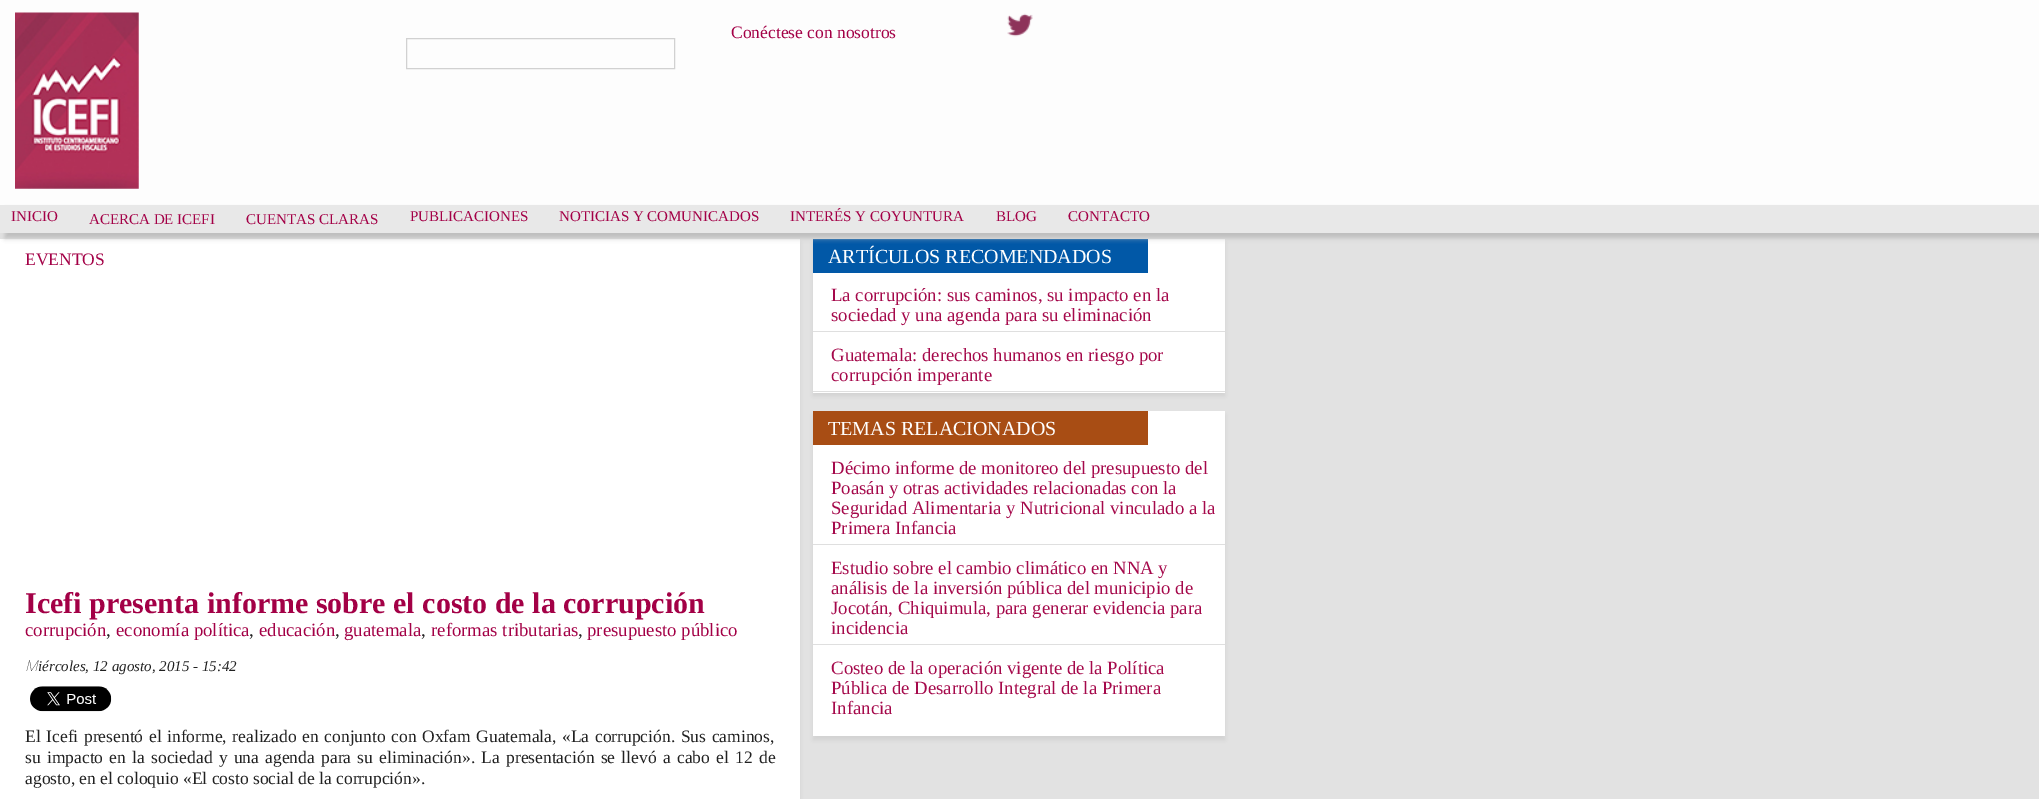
%!PS
<< /PageSize [2039 799] /PageUsesTransparency true >> setpagedevice
/alpha { dup .setfillconstantalpha .setstrokeconstantalpha } def
/roundrect { 5 dict begin { /r /h /w /y /x } { exch def } forall
  x r add y moveto x w add y 2 copy h add r arct x w add y h add x 1 index r arct
  x y h add x y r arct x y 2 copy exch w add exch r arct closepath end } def
/shadow { 12 dict begin { /a /b /q /h /w /y /x } { exch def } forall gsave /was 0 def
  9 -2 -9 { dup b mul 4 div /e exch def 1 sub .425 mul 2.718 exch exp 1 add a .99 .min exch div /now exch def
    1 1 now sub 1 was sub div sub alpha /was now def
    w h .min e 2 mul add 0 gt { x e sub y e sub w e 2 mul add h e 2 mul add
      q e add b .6 mul add w h .min 2 div e add .min 0 .max roundrect fill } if } for grestore end } def
/picture { 5 dict begin { /h /w /y /x /name } { exch def } forall
  gsave x y translate w h scale
  w h 8 [w 0 0 h 0 0] name (r) file false 3 colorimage grestore end } def
0 .pushpdf14devicefilter
0 799 translate 1 -1 scale
4 setmiterlimit
0.886 setgray
0 0 2039 799 rectfill
0.992 setgray
0 0 2039 205 rectfill
(img1.rgb) 15 12 124 177 picture
/LiberationSerif-Regular [17.5 0 0 -17.5 0 0] selectfont
0.639 0 0.275 setrgbcolor
731 38 moveto (Conéctese con nosotros) show
(img2.rgb) 1007 13 26 24 picture
0.82 setgray
406.5 38.5 268 30 rectstroke
0.824 setgray
0 243 800 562 0 2 1 shadow
1 setgray
0 239 800 560 rectfill
0.824 setgray
813 243 412 153 0 2 1 shadow
1 setgray
813 239 412 154 rectfill
0.004 0.345 0.655 setrgbcolor
813 239 335 34 rectfill
0.741 setgray
5 210 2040 28 0 2.5 1 shadow
0.91 setgray
0 205 2039 28 rectfill
/LiberationSerif-Regular [15 0 0 -15 0 0] selectfont
0.639 0 0.275 setrgbcolor
11 221 moveto (INICIO) show
89 224 moveto (ACERCA DE ICEFI) show
246 224 moveto (CUENTAS CLARAS) show
410 221 moveto (PUBLICACIONES) show
559 221 moveto (NOTICIAS Y COMUNICADOS) show
790 221 moveto (INTERÉS Y COYUNTURA) show
996 221 moveto (BLOG) show
1068 221 moveto (CONTACTO) show
/LiberationSerif-Regular [17.5 0 0 -17.5 0 0] selectfont
25 265 moveto (EVENTOS) show
/LiberationSerif-Bold [30 0 0 -30 0 0] selectfont
25 613 moveto (Icefi presenta informe sobre el costo de la corrupción) show
/LiberationSerif-Regular [18.75 0 0 -18.75 0 0] selectfont
25 636 moveto (corrupción) show
0.129 setgray
106 636 moveto (,) show
0.639 0 0.275 setrgbcolor
116 636 moveto (economía política) show
0.129 setgray
249 636 moveto (,) show
0.639 0 0.275 setrgbcolor
259 636 moveto (educación) show
0.129 setgray
335 636 moveto (,) show
0.639 0 0.275 setrgbcolor
344 636 moveto (guatemala) show
0.129 setgray
421 636 moveto (,) show
0.639 0 0.275 setrgbcolor
431 636 moveto (reformas tributarias) show
0.129 setgray
578 636 moveto (,) show
0.639 0 0.275 setrgbcolor
587 636 moveto (presupuesto público) show
/NotoSans-ThinItalic [15 0 0 -15 0 0] selectfont
0.129 setgray
25 671 moveto (M) show
/LiberationSerif-Italic [15 0 0 -15 0 0] selectfont
38 671 moveto (iércoles, 12 agosto, 2015 - 15:42) show
(img3.rgb) 30 686 82 26 picture
/LiberationSerif-Regular [17.5 0 0 -17.5 0 0] selectfont
25 742 moveto 1.25 0 32 (El Icefi presentó el informe, realizado en conjunto con Oxfam Guatemala, «La corrupción. Sus caminos,) widthshow
25 763 moveto 1.9 0 32 (su impacto en la sociedad y una agenda para su eliminación». La presentación se llevó a cabo el 12 de) widthshow
25 784 moveto (agosto, en el coloquio «El costo social de la corrupción».) show
/LiberationSerif-Regular [20 0 0 -20 0 0] selectfont
1 setgray
828 263 moveto (ARTÍCULOS RECOMENDADOS) show
0.875 setgray
813 331 412 1 rectfill
/LiberationSerif-Regular [18.75 0 0 -18.75 0 0] selectfont
0.647 0.035 0.294 setrgbcolor
831 301 moveto (La corrupción: sus caminos, su impacto en la) show
831 321 moveto (sociedad y una agenda para su eliminación) show
0.875 setgray
813 391 412 1 rectfill
0.647 0.035 0.294 setrgbcolor
831 361 moveto (Guatemala: derechos humanos en riesgo por) show
831 381 moveto (corrupción imperante) show
0.824 setgray
813 415 412 325 0 2 1 shadow
1 setgray
813 411 412 325 rectfill
0.659 0.302 0.078 setrgbcolor
813 411 335 34 rectfill
/LiberationSerif-Regular [20 0 0 -20 0 0] selectfont
1 setgray
828 435 moveto (TEMAS RELACIONADOS) show
0.875 setgray
813 544 412 1 rectfill
/LiberationSerif-Regular [18.75 0 0 -18.75 0 0] selectfont
0.647 0.035 0.294 setrgbcolor
831 474 moveto (Décimo informe de monitoreo del presupuesto del) show
831 494 moveto (Poasán y otras actividades relacionadas con la) show
831 514 moveto (Seguridad Alimentaria y Nutricional vinculado a la) show
831 534 moveto (Primera Infancia) show
0.875 setgray
813 644 412 1 rectfill
0.647 0.035 0.294 setrgbcolor
831 574 moveto (Estudio sobre el cambio climático en NNA y) show
831 594 moveto (análisis de la inversión pública del municipio de) show
831 614 moveto (Jocotán, Chiquimula, para generar evidencia para) show
831 634 moveto (incidencia) show
831 674 moveto (Costeo de la operación vigente de la Política) show
831 694 moveto (Pública de Desarrollo Integral de la Primera) show
831 714 moveto (Infancia) show
.poppdf14devicefilter showpage
